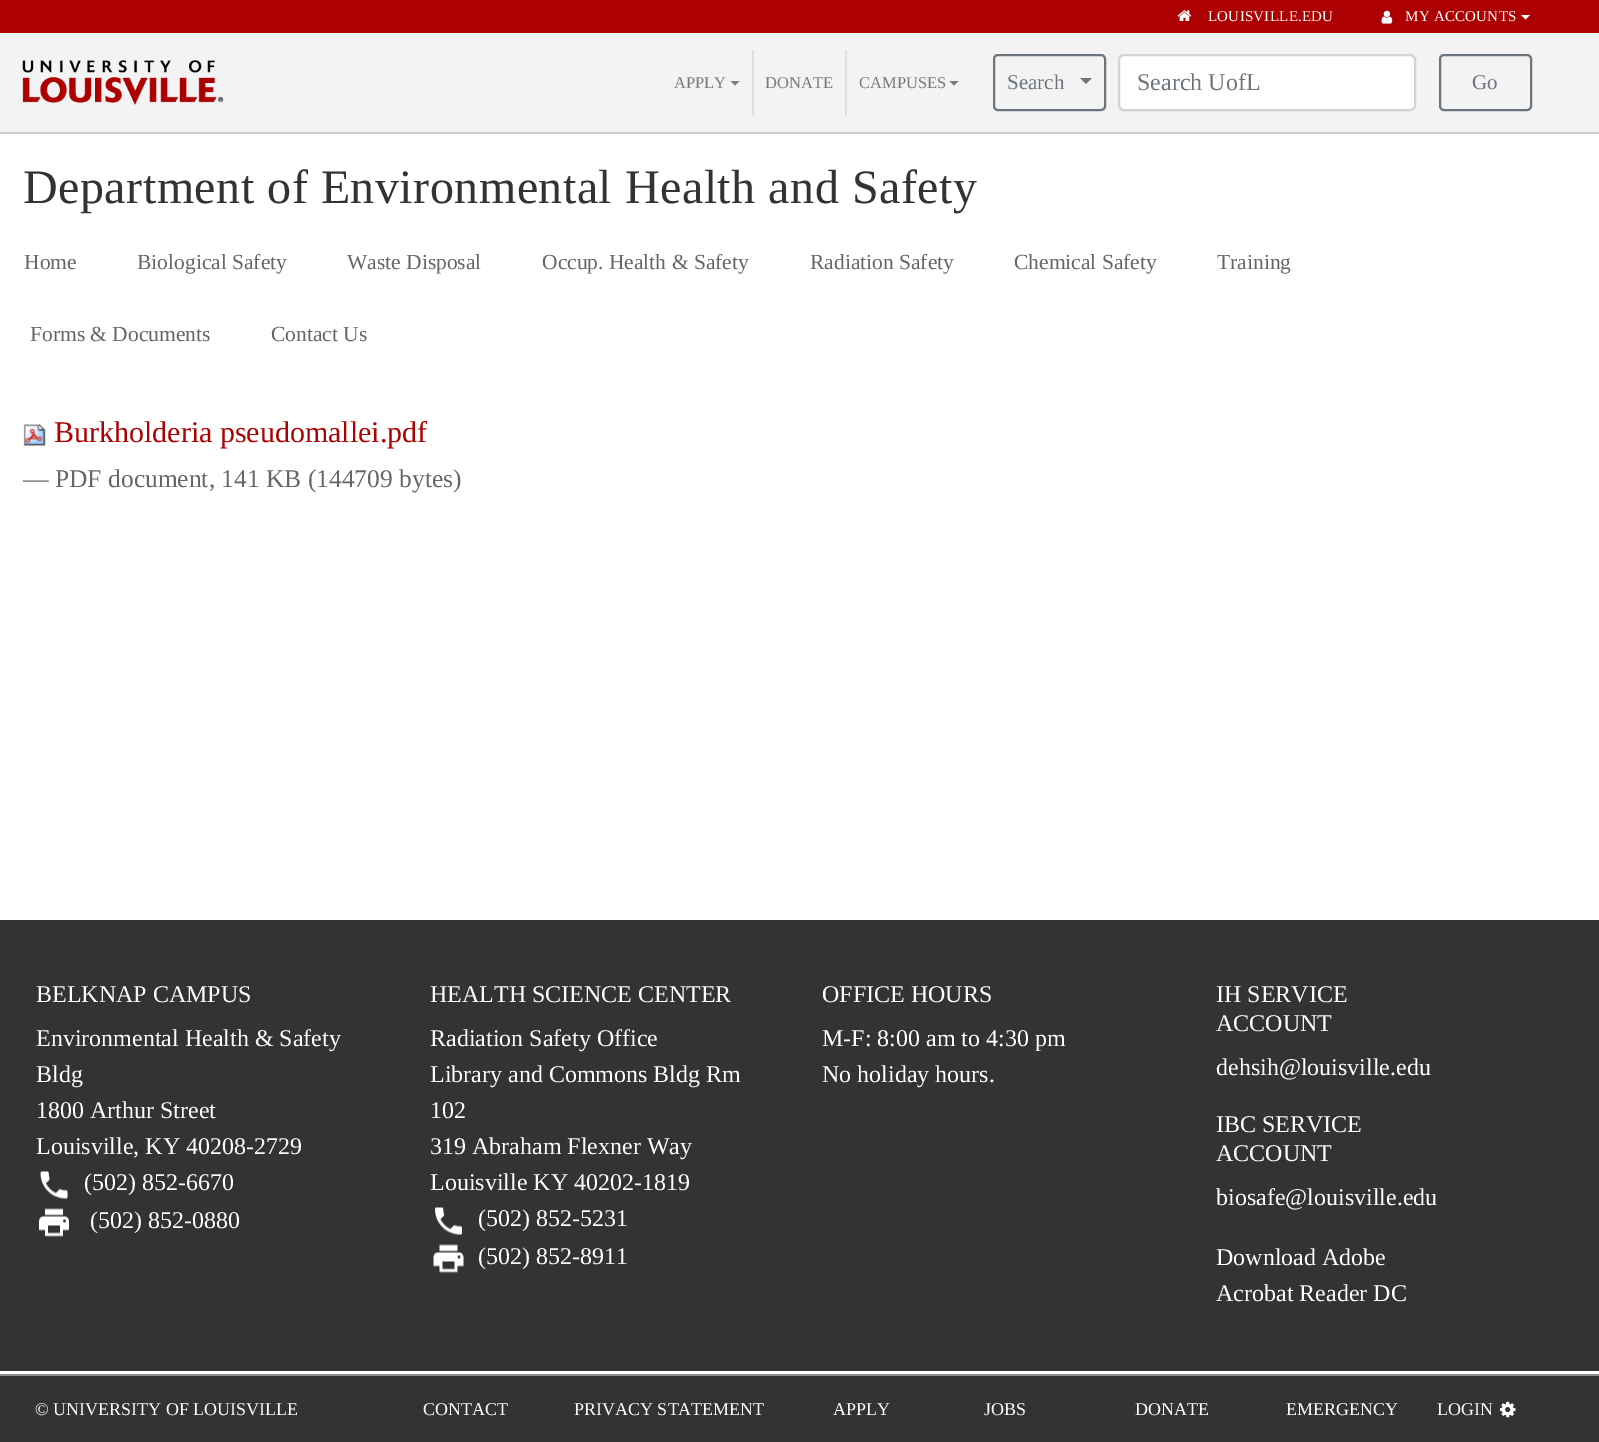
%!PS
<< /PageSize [1599 1442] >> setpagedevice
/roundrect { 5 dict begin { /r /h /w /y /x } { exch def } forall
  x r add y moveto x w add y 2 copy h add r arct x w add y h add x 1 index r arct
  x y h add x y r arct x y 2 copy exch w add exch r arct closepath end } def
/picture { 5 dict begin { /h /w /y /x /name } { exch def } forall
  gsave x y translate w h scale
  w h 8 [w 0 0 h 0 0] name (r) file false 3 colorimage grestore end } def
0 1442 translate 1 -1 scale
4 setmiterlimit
1 setgray
0 0 1599 1442 rectfill
0.678 0 0 setrgbcolor
0 0 1599 33 rectfill
(img1.rgb) 1177 10 15 11 picture
/LiberationSerif-Regular [15 0 0 -15 0 0] selectfont
1 setgray
1208 21 moveto 0.25 0 (LOUISVILLE.EDU) ashow
(img2.rgb) 1381 10 12 14 picture
1405 21 moveto 0.25 0 (MY ACCOUNTS) ashow
newpath 1521 15 moveto 1530 15 lineto 1525.5 19.5 lineto closepath fill
0.953 setgray
0 33 1599 99 rectfill
0.8 setgray
0 132 1599 2 rectfill
(img3.rgb) 22 60 202 45 picture
/LiberationSerif-Regular [16.5 0 0 -16.5 0 0] selectfont
0.478 setgray
674 88 moveto (APPLY) show
newpath 730.5 81 moveto 739.5 81 lineto 735 85.5 lineto closepath fill
0.875 setgray
752 50 2 66 rectfill
0.478 setgray
765 88 moveto (DONATE) show
0.875 setgray
845 50 2 66 rectfill
0.478 setgray
859 88 moveto (CAMPUSES) show
newpath 949.5 81 moveto 958.5 81 lineto 954 85.5 lineto closepath fill
0.424 0.459 0.49 setrgbcolor
2 setlinewidth
994 55 111 55 4 roundrect stroke
/LiberationSerif-Regular [21 0 0 -21 0 0] selectfont
1007 89 moveto (Search) show
newpath 1080 78 moveto 1092 78 lineto 1086 84 lineto closepath fill
1 setgray
1119 55 296 55 5 roundrect gsave fill grestore
0.808 0.831 0.855 setrgbcolor
stroke
/LiberationSerif-Regular [24 0 0 -24 0 0] selectfont
0.424 0.459 0.49 setrgbcolor
1137 90 moveto (Search UofL) show
1440 55 91 55 4 roundrect stroke
/LiberationSerif-Regular [21 0 0 -21 0 0] selectfont
1472 89 moveto (Go) show
/LiberationSerif-Regular [48 0 0 -48 0 0] selectfont
0.2 setgray
23 203 moveto 0.5 0 (Department of Environmental Health and Safety) ashow
/LiberationSerif-Regular [21.5 0 0 -21.5 0 0] selectfont
0.4 setgray
24 269 moveto (Home) show
137 269 moveto (Biological Safety) show
347 269 moveto (Waste Disposal) show
542 269 moveto (Occup. Health & Safety) show
810 269 moveto (Radiation Safety) show
1014 269 moveto (Chemical Safety) show
1217 269 moveto (Training) show
30 341 moveto (Forms & Documents) show
271 341 moveto (Contact Us) show
(img4.rgb) 23 424 23 22 picture
/LiberationSerif-Regular [30 0 0 -30 0 0] selectfont
0.678 0 0 setrgbcolor
54 442 moveto (Burkholderia pseudomallei.pdf) show
/LiberationSerif-Regular [25.5 0 0 -25.5 0 0] selectfont
0.4 setgray
23 487 moveto (— PDF document, 141 KB \(144709 bytes\)) show
0.2 setgray
0 920 1599 451 rectfill
/LiberationSerif-Regular [24 0 0 -24 0 0] selectfont
1 setgray
36 1002 moveto (BELKNAP CAMPUS) show
36 1046 moveto (Environmental Health & Safety) show
36 1082 moveto (Bldg) show
36 1118 moveto (1800 Arthur Street) show
36 1154 moveto (Louisville, KY 40208-2729) show
(img5.rgb) 40 1171 28 28 picture
84 1190 moveto (\(502\) 852-6670) show
(img6.rgb) 39 1208 30 29 picture
90 1228 moveto (\(502\) 852-0880) show
430 1002 moveto (HEALTH SCIENCE CENTER) show
430 1046 moveto (Radiation Safety Office) show
430 1082 moveto (Library and Commons Bldg Rm) show
430 1118 moveto (102) show
430 1154 moveto (319 Abraham Flexner Way) show
430 1190 moveto (Louisville KY 40202-1819) show
(img7.rgb) 435 1207 27 28 picture
478 1226 moveto (\(502\) 852-5231) show
(img8.rgb) 433 1244 31 29 picture
478 1264 moveto (\(502\) 852-8911) show
822 1002 moveto (OFFICE HOURS) show
822 1046 moveto (M-F: 8:00 am to 4:30 pm) show
822 1082 moveto (No holiday hours.) show
1216 1002 moveto (IH SERVICE) show
1216 1031 moveto (ACCOUNT) show
1216 1075 moveto (dehsih@louisville.edu) show
1216 1132 moveto (IBC SERVICE) show
1216 1161 moveto (ACCOUNT) show
1216 1205 moveto (biosafe@louisville.edu) show
1216 1265 moveto (Download Adobe) show
1216 1301 moveto (Acrobat Reader DC) show
0.2 setgray
0 1376 1599 66 rectfill
0.545 setgray
0 1374 1599 2 rectfill
/LiberationSerif-Regular [18 0 0 -18 0 0] selectfont
1 setgray
35 1415 moveto (© UNIVERSITY OF LOUISVILLE) show
423 1415 moveto (CONTACT) show
574 1415 moveto (PRIVACY STATEMENT) show
833 1415 moveto (APPLY) show
984 1415 moveto (JOBS) show
1135 1415 moveto (DONATE) show
1286 1415 moveto (EMERGENCY) show
1437 1415 moveto (LOGIN) show
(img9.rgb) 1500 1401 16 17 picture
showpage
